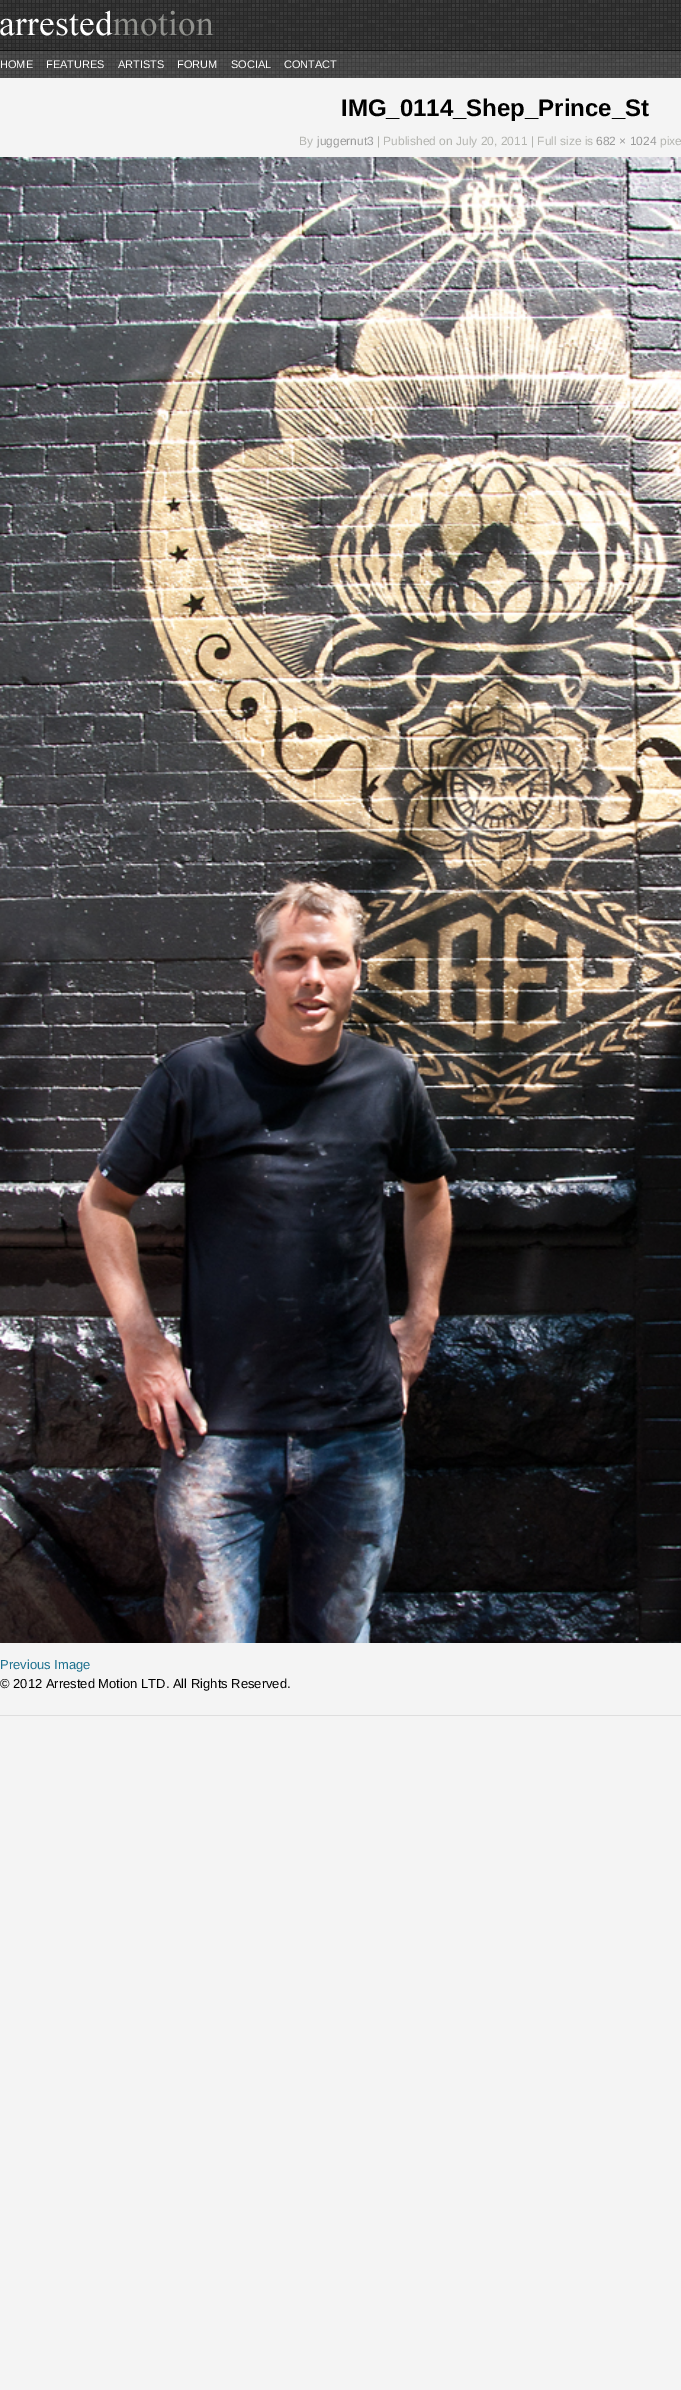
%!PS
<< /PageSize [681 2390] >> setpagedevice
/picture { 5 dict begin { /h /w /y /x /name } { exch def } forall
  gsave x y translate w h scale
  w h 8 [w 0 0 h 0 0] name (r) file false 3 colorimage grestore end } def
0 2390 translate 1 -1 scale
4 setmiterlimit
0.957 setgray
0 0 681 2390 rectfill
(img1.rgb) 0 0 681 50 picture
(img2.rgb) 0 10 214 26 picture
(img3.rgb) 0 51 681 27 picture
0.067 setgray
0 50 681 1 rectfill
/LiberationSans-Regular [11 0 0 -11 0 0] selectfont
1 setgray
0 68 moveto (HOME) show
46 68 moveto (FEATURES) show
118 68 moveto (ARTISTS) show
177 68 moveto (FORUM) show
231 68 moveto (SOCIAL) show
284 68 moveto (CONTACT) show
/LiberationSans-Bold [24 0 0 -24 0 0] selectfont
0 setgray
341 116 moveto (IMG_0114_Shep_Prince_St) show
/LiberationSans-Regular [12 0 0 -12 0 0] selectfont
0.706 0.71 0.69 setrgbcolor
299 145 moveto (By) show
0.608 setgray
317 145 moveto (juggernut3) show
0.706 0.71 0.69 setrgbcolor
377 145 moveto (| Published on July 20, 2011 | Full size is) show
0.608 setgray
596 145 moveto (682 × 1024) show
0.706 0.71 0.69 setrgbcolor
660 145 moveto (pixe) show
(img4.rgb) 0 157 681 1486 picture
/LiberationSans-Regular [13 0 0 -13 0 0] selectfont
0.114 0.443 0.561 setrgbcolor
0 1669 moveto (Previous Image) show
0 setgray
0 1688 moveto (© 2012 Arrested Motion LTD. All Rights Reserved.) show
0.871 setgray
0 1715 681 1 rectfill
showpage
